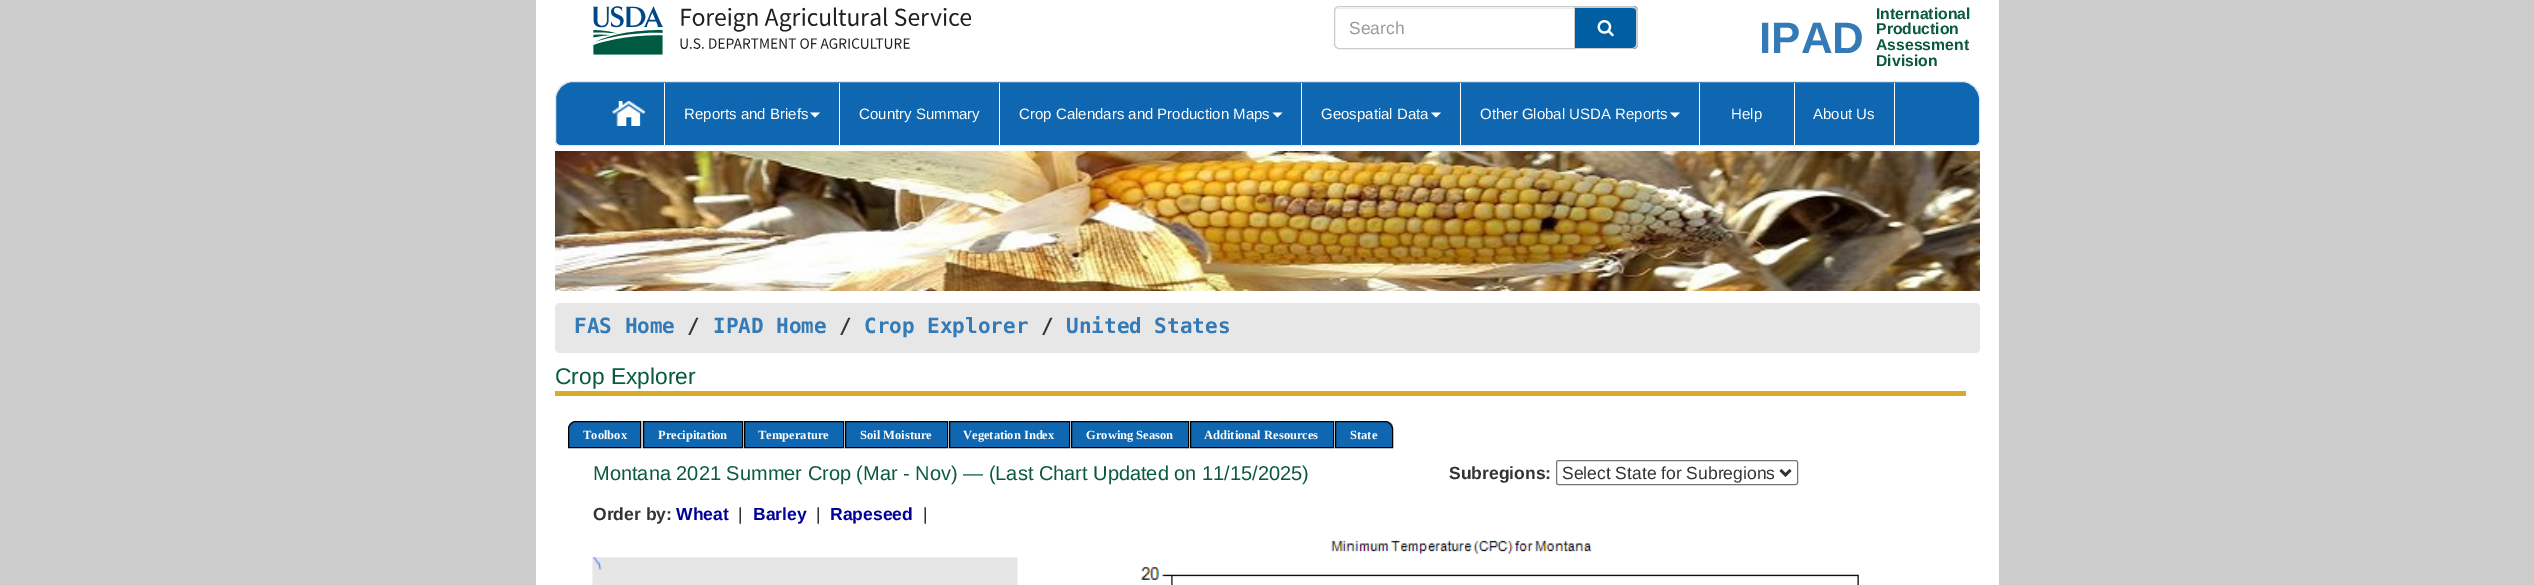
%!PS
<< /PageSize [2534 585] >> setpagedevice
/roundrect { 5 dict begin { /r /h /w /y /x } { exch def } forall
  x r add y moveto x w add y 2 copy h add r arct x w add y h add x 1 index r arct
  x y h add x y r arct x y 2 copy exch w add exch r arct closepath end } def
/picture { 5 dict begin { /h /w /y /x /name } { exch def } forall
  gsave x y translate w h scale
  w h 8 [w 0 0 h 0 0] name (r) file false 3 colorimage grestore end } def
0 585 translate 1 -1 scale
4 setmiterlimit
0.8 setgray
0 0 2534 585 rectfill
1 setgray
536 0 1463 585 rectfill
(img1.rgb) 593 6 378 49 picture
0.925 setgray
newpath 1339 9 moveto 1574 9 lineto 1574 8 lineto 1339 8 lineto 1337 8 1335 10 1335 12 curveto 1335 10 1337 9 1339 9 curveto closepath fill
0.8 setgray
newpath 1339 6.5 moveto 1574.5 6.5 lineto 1574.5 48.5 lineto 1339 48.5 lineto 1336.5 48.5 1334.5 46.5 1334.5 44 curveto 1334.5 11 lineto 1334.5 8.5 1336.5 6.5 1339 6.5 curveto closepath stroke
/LiberationSans-Regular [17.5 0 0 -17.5 0 0] selectfont
0.6 setgray
1349 34 moveto (Search) show
0 0.369 0.635 setrgbcolor
newpath 1575 6 moveto 1633 6 lineto 1636 6 1638 8 1638 11 curveto 1638 44 lineto 1638 47 1636 49 1633 49 curveto 1575 49 lineto closepath fill
0.8 setgray
newpath 1575 6 moveto 1632 6 lineto 1635 6 1638 8 1638 11 curveto 1638 44 lineto 1638 47 1635 49 1632 49 curveto 1575 49 lineto closepath 1575 8 moveto 1632 8 lineto 1635 8 1636 9 1636 11 curveto 1636 44 lineto 1636 46 1635 48 1632 48 curveto 1575 48 lineto closepath eofill
(img2.rgb) 1597 20 17 17 picture
/LiberationSans-Bold [44 0 0 -44 0 0] selectfont
0.2 0.478 0.718 setrgbcolor
1759 53 moveto (IPAD) show
/LiberationSans-Bold [15.75 0 0 -15.75 0 0] selectfont
0.043 0.349 0.255 setrgbcolor
1876 19 moveto (International) show
1876 34 moveto (Production) show
1876 50 moveto (Assessment) show
1876 66 moveto (Division) show
0.055 0.404 0.69 setrgbcolor
newpath 573 81.5 moveto 1962 81.5 lineto 1971.5 81.5 1979.5 89.5 1979.5 99 curveto 1979.5 141 lineto 1979.5 143.5 1977.5 145.5 1975 145.5 curveto 560 145.5 lineto 557.5 145.5 555.5 143.5 555.5 141 curveto 555.5 99 lineto 555.5 89.5 563.5 81.5 573 81.5 curveto closepath gsave fill grestore
0.906 setgray
stroke
1 setgray
664 83 1 62 rectfill
(img3.rgb) 612 101 33 25 picture
839 83 1 62 rectfill
/LiberationSans-Regular [15 0 0 -15 0 0] selectfont
684 119 moveto (Reports and Briefs) show
newpath 810 112.5 moveto 820 112.5 lineto 815 117.5 lineto closepath fill
999 83 1 62 rectfill
859 119 moveto (Country Summary) show
1301 83 1 62 rectfill
1019 119 moveto (Crop Calendars and Production Maps) show
newpath 1272.5 112.5 moveto 1282.5 112.5 lineto 1277.5 117.5 lineto closepath fill
1460 83 1 62 rectfill
1321 119 moveto (Geospatial Data) show
newpath 1431 112.5 moveto 1441 112.5 lineto 1436 117.5 lineto closepath fill
1699 83 1 62 rectfill
1480 119 moveto (Other Global USDA Reports) show
newpath 1670 112.5 moveto 1680 112.5 lineto 1675 117.5 lineto closepath fill
1794 83 1 62 rectfill
1731 119 moveto (Help) show
1894 83 1 62 rectfill
1813 119 moveto (About Us) show
(img4.rgb) 555 151 1425 140 picture
0.906 setgray
555 303 1425 50 5 roundrect fill
/DejaVuSansMono-Bold [21 0 0 -21 0 0] selectfont
0.2 0.478 0.718 setrgbcolor
574 333 moveto (FAS Home) show
0.2 setgray
687 333 moveto (/) show
0.2 0.478 0.718 setrgbcolor
713 333 moveto (IPAD Home) show
0.2 setgray
839 333 moveto (/) show
0.2 0.478 0.718 setrgbcolor
864 333 moveto (Crop Explorer) show
0.2 setgray
1041 333 moveto (/) show
0.2 0.478 0.718 setrgbcolor
1066 333 moveto (United States) show
0.847 0.671 0.176 setrgbcolor
555 391 1411 5 rectfill
/LiberationSans-Regular [22.75 0 0 -22.75 0 0] selectfont
0.043 0.349 0.255 setrgbcolor
555 384 moveto (Crop Explorer) show
0.784 setgray
newpath 576 421 moveto 643 421 lineto 643 448 lineto 568 448 lineto 568 429 lineto 568 424.5 571.5 421 576 421 curveto closepath fill
1 setgray
641 421 1 27 rectfill
0.055 0.404 0.69 setrgbcolor
newpath 576 421.5 moveto 640.5 421.5 lineto 640.5 447.5 lineto 568.5 447.5 lineto 568.5 429 lineto 568.5 425 572 421.5 576 421.5 curveto closepath gsave fill grestore
0 setgray
stroke
/LiberationSerif-Bold [12.5 0 0 -12.5 0 0] selectfont
1 setgray
583 439 moveto (Toolbox) show
0.055 0.404 0.69 setrgbcolor
newpath 643.5 421.5 moveto 742.5 421.5 lineto 742.5 447.5 lineto 643.5 447.5 lineto closepath gsave fill grestore
0 setgray
stroke
1 setgray
658 439 moveto (Precipitation) show
0.055 0.404 0.69 setrgbcolor
newpath 744.5 421.5 moveto 843.5 421.5 lineto 843.5 447.5 lineto 744.5 447.5 lineto closepath gsave fill grestore
0 setgray
stroke
1 setgray
758 439 moveto (Temperature) show
0.055 0.404 0.69 setrgbcolor
newpath 845.5 421.5 moveto 947.5 421.5 lineto 947.5 447.5 lineto 845.5 447.5 lineto closepath gsave fill grestore
0 setgray
stroke
1 setgray
860 439 moveto (Soil Moisture) show
0.055 0.404 0.69 setrgbcolor
newpath 949.5 421.5 moveto 1069.5 421.5 lineto 1069.5 447.5 lineto 949.5 447.5 lineto closepath gsave fill grestore
0 setgray
stroke
1 setgray
963 439 moveto (Vegetation Index) show
0.055 0.404 0.69 setrgbcolor
newpath 1071.5 421.5 moveto 1188.5 421.5 lineto 1188.5 447.5 lineto 1071.5 447.5 lineto closepath gsave fill grestore
0 setgray
stroke
1 setgray
1086 439 moveto (Growing Season) show
0.055 0.404 0.69 setrgbcolor
newpath 1190.5 421.5 moveto 1333.5 421.5 lineto 1333.5 447.5 lineto 1190.5 447.5 lineto closepath gsave fill grestore
0 setgray
stroke
1 setgray
1204 439 moveto (Additional Resources) show
0.784 setgray
newpath 1335 421 moveto 1386 421 lineto 1390.5 421 1394 424.5 1394 429 curveto 1394 448 lineto 1335 448 lineto closepath fill
1 setgray
1393 425 1 23 rectfill
0.055 0.404 0.69 setrgbcolor
newpath 1335.5 421.5 moveto 1385 421.5 lineto 1389 421.5 1392.5 425 1392.5 429 curveto 1392.5 447.5 lineto 1335.5 447.5 lineto closepath gsave fill grestore
0 setgray
stroke
1 setgray
1350 439 moveto (State) show
/LiberationSans-Regular [20 0 0 -20 0 0] selectfont
0.043 0.349 0.255 setrgbcolor
593 480 moveto (Montana 2021 Summer Crop \(Mar - Nov\) — \(Last Chart Updated on 11/15/2025\)) show
/LiberationSans-Bold [17.5 0 0 -17.5 0 0] selectfont
0.2 setgray
1449 479 moveto (Subregions:) show
0.463 setgray
1556.5 460.5 241 24 2 roundrect stroke
0.2 setgray
2.5 setlinewidth
newpath 1780.5 470 moveto 1785.5 475 lineto 1790.5 470 lineto stroke
/LiberationSans-Regular [17.5 0 0 -17.5 0 0] selectfont
1562 479 moveto (Select State for Subregions) show
/LiberationSans-Bold [17.5 0 0 -17.5 0 0] selectfont
593 520 moveto (Order by:) show
0 0 0.6 setrgbcolor
676 520 moveto (Wheat) show
/LiberationSans-Regular [17.5 0 0 -17.5 0 0] selectfont
0.2 setgray
738 520 moveto (|) show
/LiberationSans-Bold [17.5 0 0 -17.5 0 0] selectfont
0 0 0.6 setrgbcolor
753 520 moveto (Barley) show
/LiberationSans-Regular [17.5 0 0 -17.5 0 0] selectfont
0.2 setgray
816 520 moveto (|) show
/LiberationSans-Bold [17.5 0 0 -17.5 0 0] selectfont
0 0 0.6 setrgbcolor
830 520 moveto (Rapeseed) show
/LiberationSans-Regular [17.5 0 0 -17.5 0 0] selectfont
0.2 setgray
923 520 moveto (|) show
(img5.rgb) 592 557 426 28 picture
(img6.rgb) 1141 540 718 45 picture
showpage
